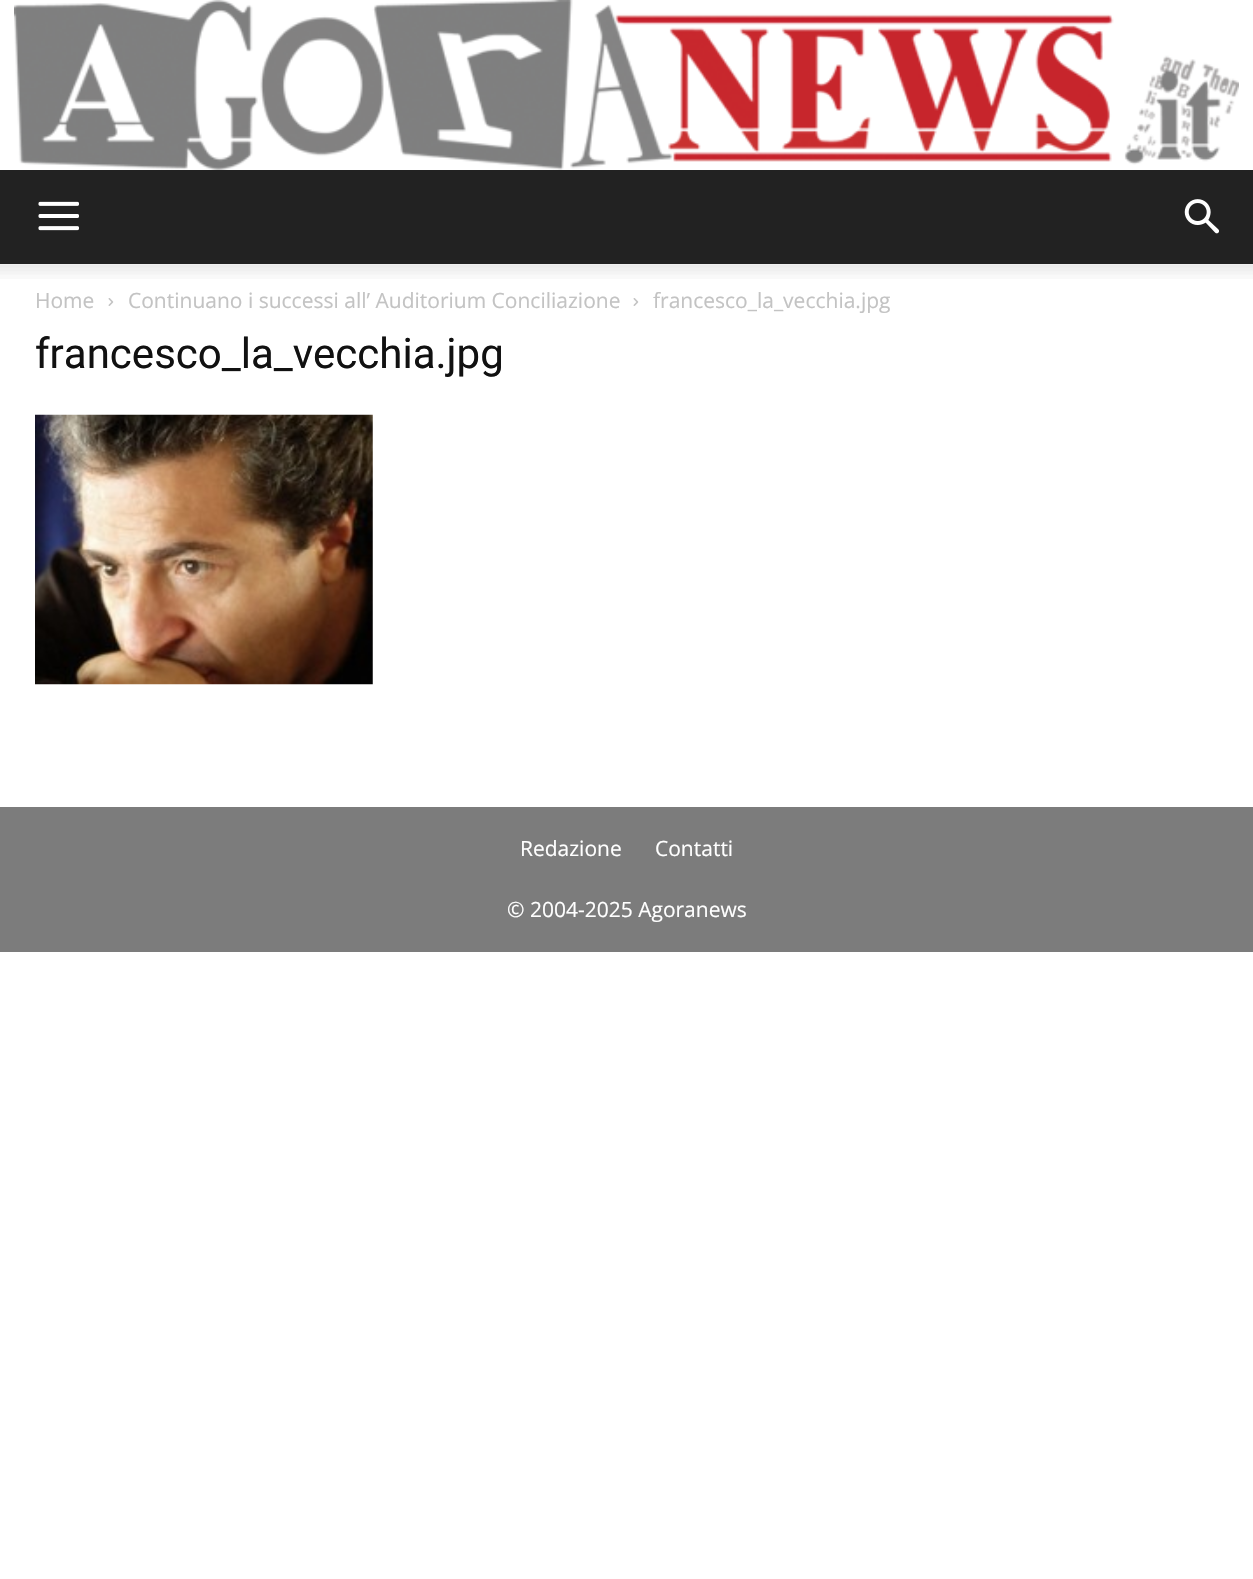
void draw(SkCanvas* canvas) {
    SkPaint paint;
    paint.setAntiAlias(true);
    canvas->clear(0xFFFFFFFF);
    canvas->drawImageRect(SkImages::DeferredFromEncodedData(SkData::MakeFromFileName("img1.png")), SkRect::MakeXYWH(14, 0, 1225, 170), SkSamplingOptions());
    paint.setColor(0xFF222222);
    canvas->drawRect(SkRect::MakeXYWH(0, 170, 1253, 94), paint);
    canvas->drawImageRect(SkImages::DeferredFromEncodedData(SkData::MakeFromFileName("img2.png")), SkRect::MakeXYWH(38, 201, 41, 30), SkSamplingOptions());
    canvas->drawImageRect(SkImages::DeferredFromEncodedData(SkData::MakeFromFileName("img3.png")), SkRect::MakeXYWH(1184, 199, 35, 35), SkSamplingOptions());
    canvas->drawImageRect(SkImages::DeferredFromEncodedData(SkData::MakeFromFileName("img4.png")), SkRect::MakeXYWH(0, 264, 1253, 15), SkSamplingOptions());
    SkFont font1(fontMgr->matchFamilyStyle("Open Sans", SkFontStyle::Normal()), 21);
    font1.setSubpixel(true);
    paint.setColor(0xFFC3C3C3);
    canvas->drawString("Home", 35, 308, font1, paint);
    canvas->drawImageRect(SkImages::DeferredFromEncodedData(SkData::MakeFromFileName("img5.png")), SkRect::MakeXYWH(108, 298, 6, 8), SkSamplingOptions());
    canvas->drawString("Continuano i successi all’ Auditorium Conciliazione", 128, 308, font1, paint);
    canvas->drawImageRect(SkImages::DeferredFromEncodedData(SkData::MakeFromFileName("img5.png")), SkRect::MakeXYWH(633, 298, 6, 8), SkSamplingOptions());
    canvas->drawString("francesco_la_vecchia.jpg", 653, 308, font1, paint);
    SkFont font2(fontMgr->matchFamilyStyle("Roboto", SkFontStyle::Normal()), 42);
    font2.setSubpixel(true);
    paint.setColor(0xFF111111);
    canvas->drawString("francesco_la_vecchia.jpg", 35, 368, font2, paint);
    canvas->drawImageRect(SkImages::DeferredFromEncodedData(SkData::MakeFromFileName("img6.png")), SkRect::MakeXYWH(35, 414, 338, 271), SkSamplingOptions());
    paint.setColor(0xFF7C7C7C);
    canvas->drawRect(SkRect::MakeXYWH(0, 807, 1253, 145), paint);
    paint.setColor(0xFFFFFFFF);
    canvas->drawString("Redazione", 520, 856, font1, paint);
    canvas->drawString("Contatti", 655, 856, font1, paint);
    canvas->drawString("© 2004-2025 Agoranews", 507, 917, font1, paint);
}
